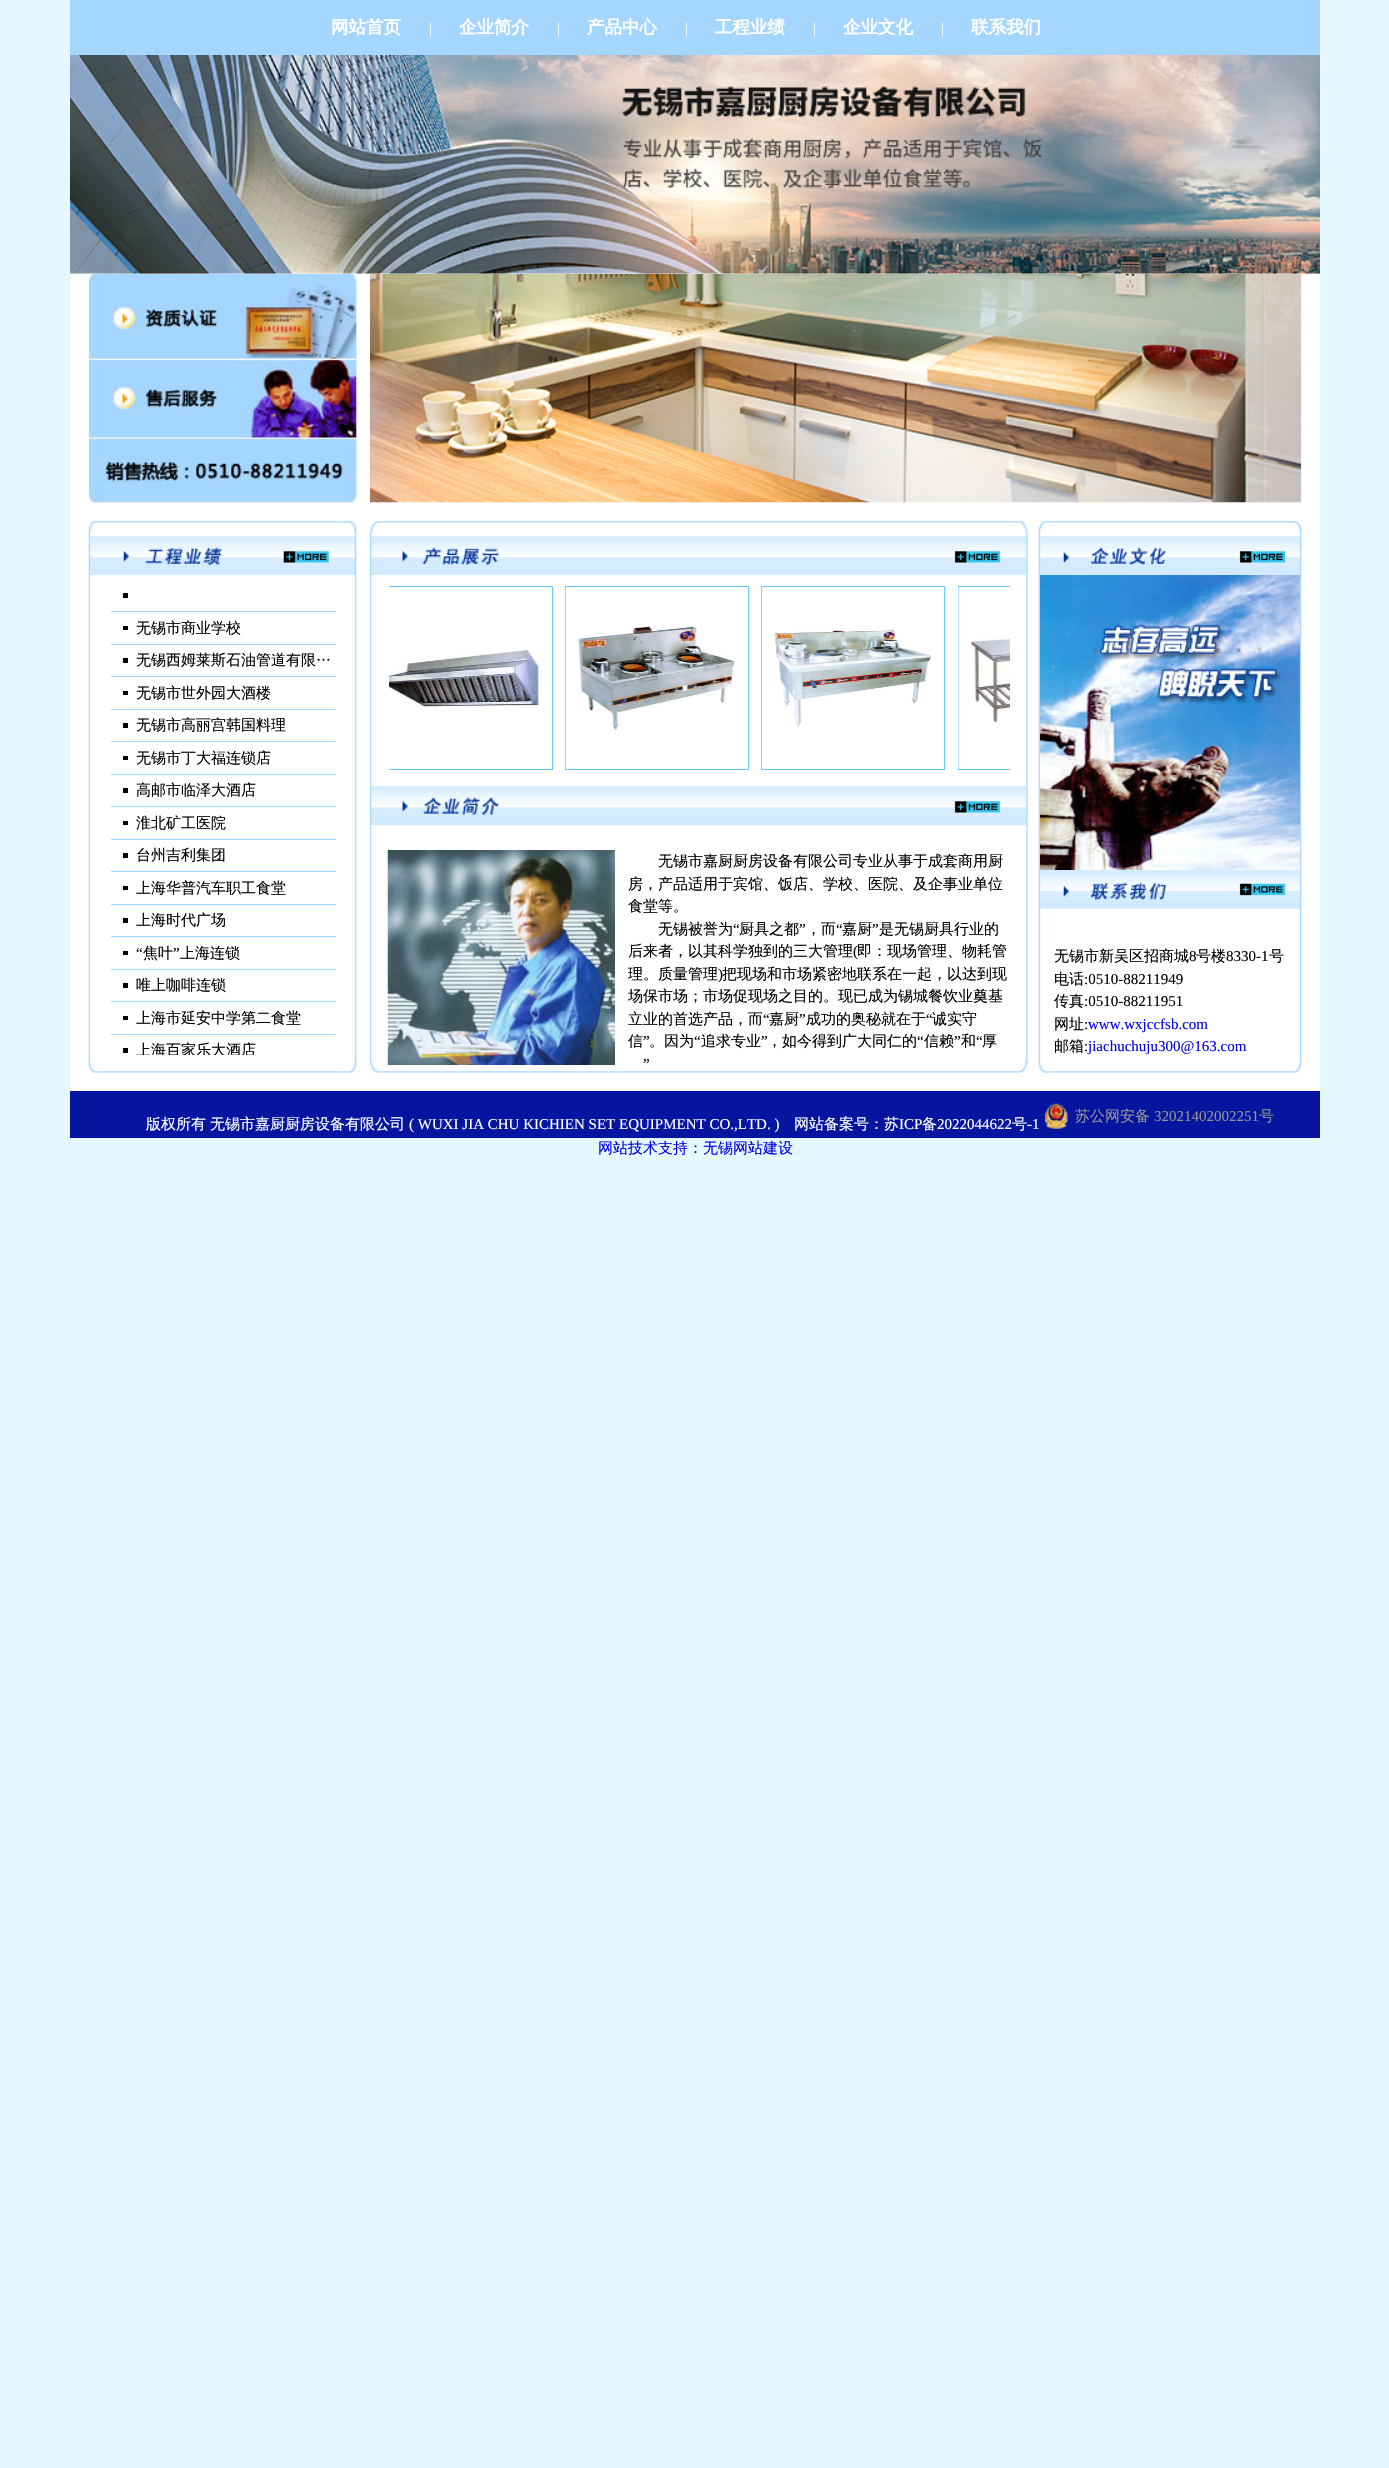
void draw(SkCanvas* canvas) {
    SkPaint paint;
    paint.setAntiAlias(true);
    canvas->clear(0xFFE6F8FF);
    paint.setColor(0xFFA5D6FF);
    canvas->drawRect(SkRect::MakeXYWH(70, 0, 1250, 55), paint);
    SkFont font1(fontMgr->matchFamilyStyle("WenQuanYi Zen Hei", SkFontStyle::Bold()), 17.5f);
    font1.setSubpixel(true);
    paint.setColor(0xFFFFFFFF);
    canvas->drawString("网站首页", 331, 33, font1, paint);
    SkFont font2(fontMgr->matchFamilyStyle("Liberation Serif", SkFontStyle::Normal()), 15);
    font2.setSubpixel(true);
    canvas->drawString("|", 429, 33, font2, paint);
    canvas->drawString("企业简介", 459, 33, font1, paint);
    canvas->drawString("|", 557, 33, font2, paint);
    canvas->drawString("产品中心", 587, 33, font1, paint);
    canvas->drawString("|", 685, 33, font2, paint);
    canvas->drawString("工程业绩", 715, 33, font1, paint);
    canvas->drawString("|", 813, 33, font2, paint);
    canvas->drawString("企业文化", 843, 33, font1, paint);
    canvas->drawString("|", 941, 33, font2, paint);
    canvas->drawString("联系我们", 971, 33, font1, paint);
    canvas->drawRect(SkRect::MakeXYWH(70, 273, 1250, 818), paint);
    canvas->drawImageRect(SkImages::DeferredFromEncodedData(SkData::MakeFromFileName("img1.png")), SkRect::MakeXYWH(70, 55, 1250, 219), SkSamplingOptions());
    canvas->drawImageRect(SkImages::DeferredFromEncodedData(SkData::MakeFromFileName("img2.png")), SkRect::MakeXYWH(88, 273, 270, 230), SkSamplingOptions());
    canvas->drawImageRect(SkImages::DeferredFromEncodedData(SkData::MakeFromFileName("img3.png")), SkRect::MakeXYWH(370, 273, 932, 230), SkSamplingOptions());
    canvas->drawImageRect(SkImages::DeferredFromEncodedData(SkData::MakeFromFileName("img4.png")), SkRect::MakeXYWH(88, 521, 1214, 552), SkSamplingOptions());
    paint.setColor(0xFF000000);
    canvas->drawRect(SkRect::MakeXYWH(123, 593, 5, 5), paint);
    paint.setColor(0xFFA4D6FF);
    canvas->drawRect(SkRect::MakeXYWH(111, 611, 225, 1), paint);
    paint.setColor(0xFF000000);
    canvas->drawRect(SkRect::MakeXYWH(123, 626, 5, 4), paint);
    paint.setColor(0xFFA4D6FF);
    canvas->drawRect(SkRect::MakeXYWH(111, 644, 225, 1), paint);
    SkFont font3(fontMgr->matchFamilyStyle("WenQuanYi Zen Hei", SkFontStyle(500, SkFontStyle::kNormal_Width, SkFontStyle::kUpright_Slant)), 15);
    font3.setSubpixel(true);
    paint.setColor(0xFF000000);
    canvas->drawString("无锡市商业学校", 136, 633, font3, paint);
    canvas->drawRect(SkRect::MakeXYWH(123, 658, 5, 5), paint);
    paint.setColor(0xFFA4D6FF);
    canvas->drawRect(SkRect::MakeXYWH(111, 676, 225, 1), paint);
    paint.setColor(0xFF000000);
    canvas->drawString("无锡西姆莱斯石油管道有限…", 136, 665, font3, paint);
    canvas->drawRect(SkRect::MakeXYWH(123, 691, 5, 4), paint);
    paint.setColor(0xFFA4D6FF);
    canvas->drawRect(SkRect::MakeXYWH(111, 709, 225, 1), paint);
    paint.setColor(0xFF000000);
    canvas->drawString("无锡市世外园大酒楼", 136, 698, font3, paint);
    canvas->drawRect(SkRect::MakeXYWH(123, 723, 5, 5), paint);
    paint.setColor(0xFFA4D6FF);
    canvas->drawRect(SkRect::MakeXYWH(111, 741, 225, 1), paint);
    paint.setColor(0xFF000000);
    canvas->drawString("无锡市高丽宫韩国料理", 136, 730, font3, paint);
    canvas->drawRect(SkRect::MakeXYWH(123, 756, 5, 4), paint);
    paint.setColor(0xFFA4D6FF);
    canvas->drawRect(SkRect::MakeXYWH(111, 774, 225, 1), paint);
    paint.setColor(0xFF000000);
    canvas->drawString("无锡市丁大福连锁店", 136, 763, font3, paint);
    canvas->drawRect(SkRect::MakeXYWH(123, 788, 5, 5), paint);
    paint.setColor(0xFFA4D6FF);
    canvas->drawRect(SkRect::MakeXYWH(111, 806, 225, 1), paint);
    paint.setColor(0xFF000000);
    canvas->drawString("高邮市临泽大酒店", 136, 795, font3, paint);
    canvas->drawRect(SkRect::MakeXYWH(123, 821, 5, 4), paint);
    paint.setColor(0xFFA4D6FF);
    canvas->drawRect(SkRect::MakeXYWH(111, 839, 225, 1), paint);
    paint.setColor(0xFF000000);
    canvas->drawString("淮北矿工医院", 136, 828, font3, paint);
    canvas->drawRect(SkRect::MakeXYWH(123, 853, 5, 5), paint);
    paint.setColor(0xFFA4D6FF);
    canvas->drawRect(SkRect::MakeXYWH(111, 871, 225, 1), paint);
    paint.setColor(0xFF000000);
    canvas->drawString("台州吉利集团", 136, 860, font3, paint);
    canvas->drawRect(SkRect::MakeXYWH(123, 886, 5, 4), paint);
    paint.setColor(0xFFA4D6FF);
    canvas->drawRect(SkRect::MakeXYWH(111, 904, 225, 1), paint);
    paint.setColor(0xFF000000);
    canvas->drawString("上海华普汽车职工食堂", 136, 893, font3, paint);
    canvas->drawRect(SkRect::MakeXYWH(123, 918, 5, 5), paint);
    paint.setColor(0xFFA4D6FF);
    canvas->drawRect(SkRect::MakeXYWH(111, 936, 225, 1), paint);
    paint.setColor(0xFF000000);
    canvas->drawString("上海时代广场", 136, 925, font3, paint);
    canvas->drawRect(SkRect::MakeXYWH(123, 951, 5, 4), paint);
    paint.setColor(0xFFA4D6FF);
    canvas->drawRect(SkRect::MakeXYWH(111, 969, 225, 1), paint);
    paint.setColor(0xFF000000);
    canvas->drawString("“", 136, 958, font2, paint);
    canvas->drawString("焦叶", 143, 958, font3, paint);
    canvas->drawString("”", 173, 958, font2, paint);
    canvas->drawString("上海连锁", 180, 958, font3, paint);
    canvas->drawRect(SkRect::MakeXYWH(123, 983, 5, 5), paint);
    paint.setColor(0xFFA4D6FF);
    canvas->drawRect(SkRect::MakeXYWH(111, 1001, 225, 1), paint);
    paint.setColor(0xFF000000);
    canvas->drawString("唯上咖啡连锁", 136, 990, font3, paint);
    canvas->drawRect(SkRect::MakeXYWH(123, 1016, 5, 4), paint);
    paint.setColor(0xFFA4D6FF);
    canvas->drawRect(SkRect::MakeXYWH(111, 1034, 225, 1), paint);
    paint.setColor(0xFF000000);
    canvas->drawString("上海市延安中学第二食堂", 136, 1023, font3, paint);
    canvas->drawRect(SkRect::MakeXYWH(123, 1048, 5, 5), paint);
    canvas->save();
    canvas->clipRect(SkRect::MakeXYWH(111, 1035, 225, 20));
    canvas->drawString("上海百家乐大酒店", 136, 1055, font3, paint);
    canvas->restore();
    canvas->save();
    canvas->clipRect(SkRect::MakeXYWH(389, 586, 621, 189));
    paint.setStyle(SkPaint::kStroke_Style);
    paint.setStrokeWidth(1);
    paint.setColor(0xFF66CCFF);
    canvas->drawRect(SkRect::MakeXYWH(369.5f, 586.5f, 183, 183), paint);
    canvas->restore();
    canvas->drawImageRect(SkImages::DeferredFromEncodedData(SkData::MakeFromFileName("img5.png")), SkRect::MakeXYWH(389, 650, 150, 57), SkSamplingOptions());
    canvas->drawRect(SkRect::MakeXYWH(565.5f, 586.5f, 183, 183), paint);
    canvas->drawImageRect(SkImages::DeferredFromEncodedData(SkData::MakeFromFileName("img6.png")), SkRect::MakeXYWH(565, 587, 170, 182), SkSamplingOptions());
    canvas->drawRect(SkRect::MakeXYWH(761.5f, 586.5f, 183, 183), paint);
    canvas->drawImageRect(SkImages::DeferredFromEncodedData(SkData::MakeFromFileName("img7.png")), SkRect::MakeXYWH(761, 587, 171, 182), SkSamplingOptions());
    canvas->save();
    canvas->clipRect(SkRect::MakeXYWH(389, 586, 621, 189));
    canvas->drawRect(SkRect::MakeXYWH(958.5f, 586.5f, 182, 183), paint);
    canvas->restore();
    canvas->drawImageRect(SkImages::DeferredFromEncodedData(SkData::MakeFromFileName("img8.png")), SkRect::MakeXYWH(958, 587, 52, 182), SkSamplingOptions());
    canvas->drawImageRect(SkImages::DeferredFromEncodedData(SkData::MakeFromFileName("img9.png")), SkRect::MakeXYWH(1040, 575, 260, 295), SkSamplingOptions());
    canvas->drawImageRect(SkImages::DeferredFromEncodedData(SkData::MakeFromFileName("img10.png")), SkRect::MakeXYWH(387, 850, 228, 215), SkSamplingOptions());
    paint.setStyle(SkPaint::kFill_Style);
    paint.setColor(0xFF000000);
    canvas->drawString("无锡市嘉厨厨房设备有限公司专业从事于成套商用厨", 658, 866, font3, paint);
    canvas->drawString("房，产品适用于宾馆、饭店、学校、医院、及企事业单位", 628, 889, font3, paint);
    canvas->drawString("食堂等。", 628, 911, font3, paint);
    canvas->drawString("无锡被誉为", 658, 934, font3, paint);
    canvas->drawString("“", 733, 934, font2, paint);
    canvas->drawString("厨具之都", 739, 934, font3, paint);
    canvas->drawString("”", 799, 934, font2, paint);
    canvas->drawString("，而", 806, 934, font3, paint);
    canvas->drawString("“", 836, 934, font2, paint);
    canvas->drawString("嘉厨", 842, 934, font3, paint);
    canvas->drawString("”", 872, 934, font2, paint);
    canvas->drawString("是无锡厨具行业的", 879, 934, font3, paint);
    canvas->drawString("后来者，以其科学独到的三大管理", 628, 956, font3, paint);
    canvas->drawString("(", 853, 956, font2, paint);
    canvas->drawString("即：现场管理、物耗管", 857, 956, font3, paint);
    canvas->drawString("理。质量管理", 628, 979, font3, paint);
    canvas->drawString(")", 718, 979, font2, paint);
    canvas->drawString("把现场和市场紧密地联系在一起，以达到现", 722, 979, font3, paint);
    canvas->drawString("场保市场；市场促现场之目的。现已成为锡城餐饮业奠基", 628, 1001, font3, paint);
    canvas->drawString("立业的首选产品，而", 628, 1024, font3, paint);
    canvas->drawString("“", 763, 1024, font2, paint);
    canvas->drawString("嘉厨", 769, 1024, font3, paint);
    canvas->drawString("”", 799, 1024, font2, paint);
    canvas->drawString("成功的奥秘就在于", 806, 1024, font3, paint);
    canvas->drawString("“", 926, 1024, font2, paint);
    canvas->drawString("诚实守", 932, 1024, font3, paint);
    canvas->drawString("信", 628, 1046, font3, paint);
    canvas->drawString("”", 643, 1046, font2, paint);
    canvas->drawString("。因为", 649, 1046, font3, paint);
    canvas->drawString("“", 694, 1046, font2, paint);
    canvas->drawString("追求专业", 701, 1046, font3, paint);
    canvas->drawString("”", 761, 1046, font2, paint);
    canvas->drawString("，如今得到广大同仁的", 767, 1046, font3, paint);
    canvas->drawString("“", 917, 1046, font2, paint);
    canvas->drawString("信赖", 924, 1046, font3, paint);
    canvas->drawString("”", 954, 1046, font2, paint);
    canvas->drawString("和", 961, 1046, font3, paint);
    canvas->drawString("“", 976, 1046, font2, paint);
    canvas->drawString("厚", 982, 1046, font3, paint);
    canvas->drawString("”", 643, 1069, font2, paint);
    canvas->drawString("无锡市新吴区招商城", 1054, 961, font3, paint);
    canvas->drawString("8", 1189, 961, font2, paint);
    canvas->drawString("号楼", 1196, 961, font3, paint);
    canvas->drawString("8330-1", 1226, 961, font2, paint);
    canvas->drawString("号", 1269, 961, font3, paint);
    canvas->drawString("电话", 1054, 984, font3, paint);
    canvas->drawString(":0510-88211949", 1084, 984, font2, paint);
    canvas->drawString("传真", 1054, 1006, font3, paint);
    canvas->drawString(":0510-88211951", 1084, 1006, font2, paint);
    canvas->drawString("网址", 1054, 1029, font3, paint);
    canvas->drawString(":", 1084, 1029, font2, paint);
    paint.setColor(0xFF0000EE);
    canvas->drawString("www.wxjccfsb.com", 1088, 1029, font2, paint);
    paint.setColor(0xFF000000);
    canvas->drawString("邮箱", 1054, 1051, font3, paint);
    canvas->drawString(":", 1084, 1051, font2, paint);
    paint.setColor(0xFF0000EE);
    canvas->drawString("jiachuchuju300@163.com", 1088, 1051, font2, paint);
    paint.setColor(0xFF0515A0);
    canvas->drawRect(SkRect::MakeXYWH(70, 1091, 1250, 47), paint);
    paint.setColor(0xFFFFFFFF);
    canvas->drawString("版权所有", 146, 1129, font3, paint);
    canvas->drawString("无锡市嘉厨厨房设备有限公司", 210, 1129, font3, paint);
    canvas->drawString("( WUXI JIA CHU KICHIEN SET EQUIPMENT CO.,LTD. )", 409, 1129, font2, paint);
    canvas->drawString("网站备案号：苏", 794, 1129, font3, paint);
    canvas->drawString("ICP", 899, 1129, font2, paint);
    canvas->drawString("备", 922, 1129, font3, paint);
    canvas->drawString("2022044622", 937, 1129, font2, paint);
    canvas->drawString("号", 1012, 1129, font3, paint);
    canvas->drawString("-1", 1027, 1129, font2, paint);
    canvas->drawImageRect(SkImages::DeferredFromEncodedData(SkData::MakeFromFileName("img11.png")), SkRect::MakeXYWH(1044, 1103, 24, 26), SkSamplingOptions());
    paint.setColor(0xFF939393);
    canvas->drawString("苏公网安备", 1075, 1121, font3, paint);
    canvas->drawString("32021402002251", 1154, 1121, font2, paint);
    canvas->drawString("号", 1259, 1121, font3, paint);
    paint.setColor(0xFF0000EE);
    canvas->drawString("网站技术支持：无锡网站建设", 598, 1153, font3, paint);
}
